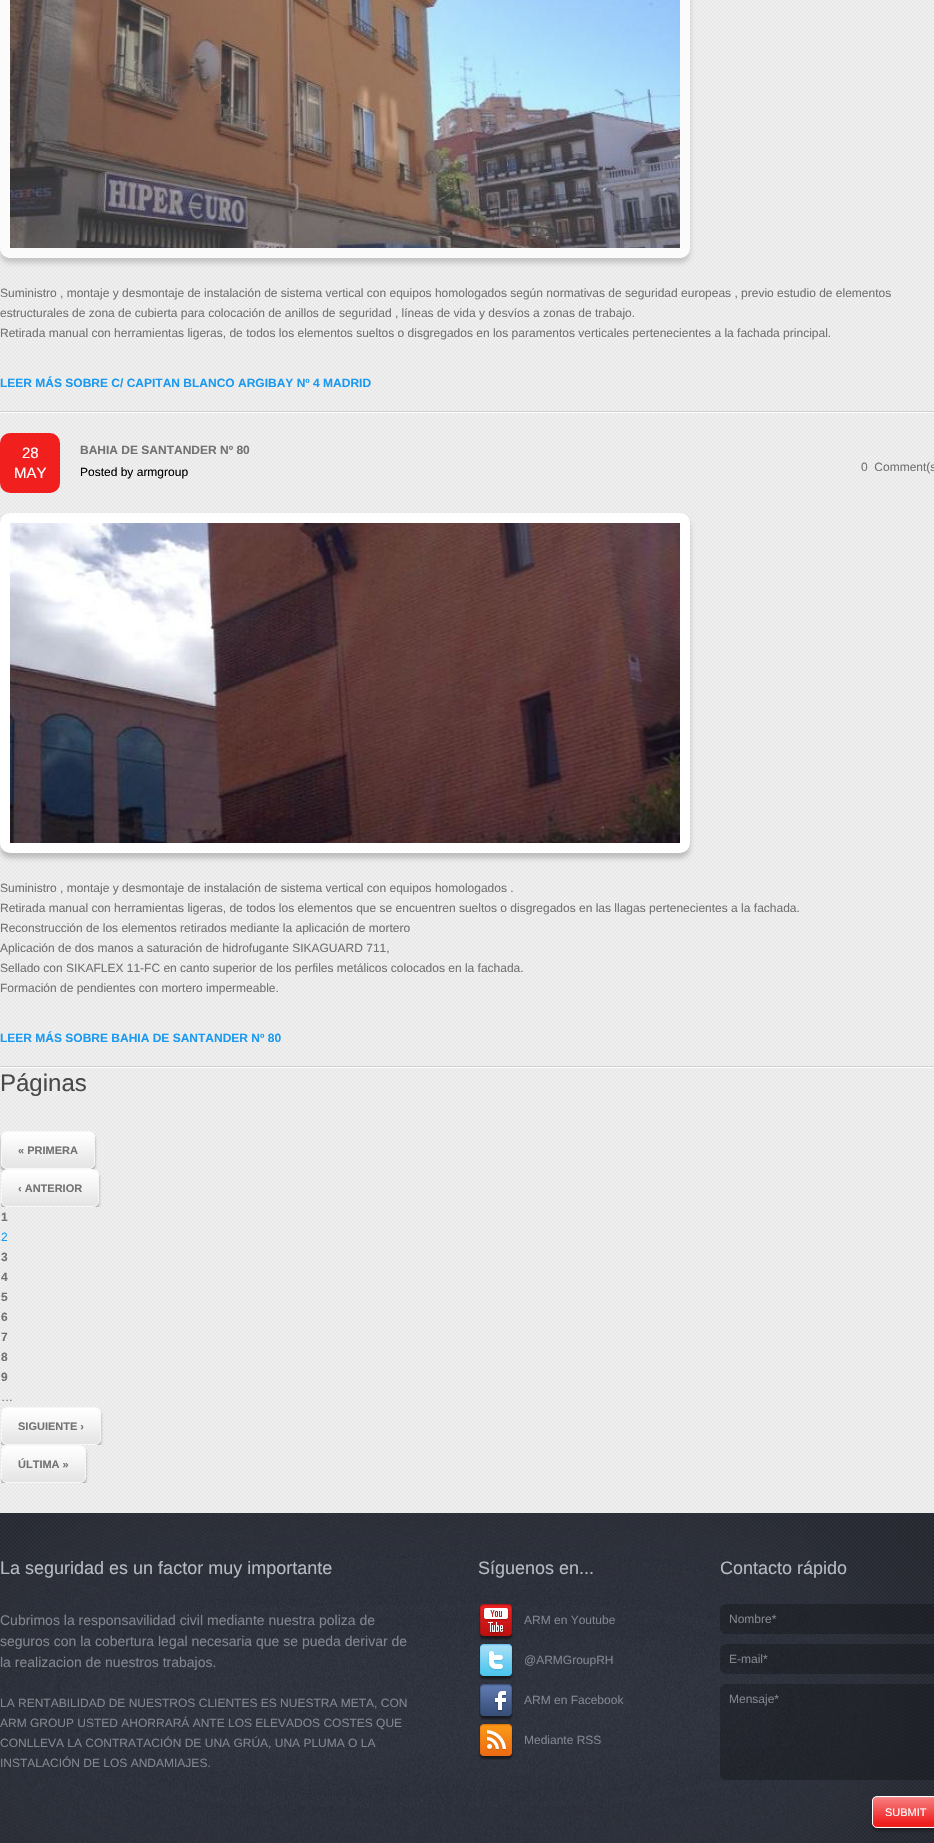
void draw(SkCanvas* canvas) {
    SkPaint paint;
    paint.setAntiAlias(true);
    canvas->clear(0xFFFFFFFF);
    canvas->drawImageRect(SkImages::DeferredFromEncodedData(SkData::MakeFromFileName("img1.png")), SkRect::MakeXYWH(0, 1513, 934, 330), SkSamplingOptions());
    canvas->drawImageRect(SkImages::DeferredFromEncodedData(SkData::MakeFromFileName("img2.png")), SkRect::MakeXYWH(0, 0, 934, 1513), SkSamplingOptions());
    canvas->drawImageRect(SkImages::DeferredFromEncodedData(SkData::MakeFromFileName("img3.png")), SkRect::MakeXYWH(0, 411, 934, 2), SkSamplingOptions());
    canvas->save();
    canvas->clipPath(SkPathBuilder(SkPathFillType::kEvenOdd).moveTo(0, 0).lineTo(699, 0).lineTo(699, 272).lineTo(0, 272).close().moveTo(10, -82).lineTo(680, -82).cubicTo(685.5f, -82, 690, -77.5f, 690, -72).lineTo(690, 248).cubicTo(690, 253.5f, 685.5f, 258, 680, 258).lineTo(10, 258).cubicTo(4.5f, 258, 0, 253.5f, 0, 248).lineTo(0, -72).cubicTo(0, -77.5f, 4.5f, -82, 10, -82).close().detach(), true);
    paint.setColor(0x29000000);
    paint.setMaskFilter(SkMaskFilter::MakeBlur(kNormal_SkBlurStyle, 2.5f));
    canvas->drawRoundRect(SkRect::MakeXYWH(0, -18, 690, 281), 10, 10, paint);
    paint.setMaskFilter(nullptr);
    canvas->restore();
    paint.setStyle(SkPaint::kStroke_Style);
    paint.setStrokeWidth(10);
    paint.setColor(0xCCFFFFFF);
    canvas->drawRoundRect(SkRect::MakeXYWH(5, -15, 680, 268), 5, 5, paint);
    canvas->drawImageRect(SkImages::DeferredFromEncodedData(SkData::MakeFromFileName("img4.png")), SkRect::MakeXYWH(10, 0, 670, 248), SkSamplingOptions());
    SkFont font1(fontMgr->matchFamilyStyle("Liberation Sans", SkFontStyle::Normal()), 12);
    font1.setSubpixel(true);
    paint.setStyle(SkPaint::kFill_Style);
    paint.setColor(0xFF727272);
    canvas->drawString("Suministro , montaje y desmontaje de instalación de sistema vertical con equipos homologados según normativas de seguridad europeas , previo estudio de elementos", 0, 297, font1, paint);
    canvas->drawString("estructurales de zona de cubierta para colocación de anillos de seguridad , líneas de vida y desvíos a zonas de trabajo.", 0, 317, font1, paint);
    canvas->drawString("Retirada manual con herramientas ligeras, de todos los elementos sueltos o disgregados en los paramentos verticales pertenecientes a la fachada principal.", 0, 337, font1, paint);
    SkFont font2(fontMgr->matchFamilyStyle("Liberation Sans", SkFontStyle::Bold()), 12);
    font2.setSubpixel(true);
    paint.setColor(0xFF1C9AF0);
    canvas->drawString("LEER MÁS SOBRE C/ CAPITAN BLANCO ARGIBAY Nº 4 MADRID", 0, 387, font2, paint);
    canvas->drawImageRect(SkImages::DeferredFromEncodedData(SkData::MakeFromFileName("img5.png")), SkRect::MakeXYWH(0, 1066, 934, 2), SkSamplingOptions());
    paint.setColor(0xFFF21F1F);
    canvas->drawRoundRect(SkRect::MakeXYWH(0, 433, 60, 60), 10, 10, paint);
    SkFont font3(fontMgr->matchFamilyStyle("Liberation Sans", SkFontStyle::Normal()), 15);
    font3.setSubpixel(true);
    paint.setColor(0xFFFFFFFF);
    canvas->drawString("28", 22, 458, font3, paint);
    canvas->drawString("MAY", 14, 478, font3, paint);
    paint.setColor(0xFF727272);
    canvas->drawString("BAHIA DE SANTANDER Nº 80", 80, 454, font2, paint);
    paint.setColor(0xFF000000);
    canvas->drawString("Posted by armgroup", 80, 476, font1, paint);
    paint.setColor(0xFF727272);
    canvas->drawString("0  Comment(s", 861, 471, font1, paint);
    paint.setColor(0x33000000);
    paint.setMaskFilter(SkMaskFilter::MakeBlur(kNormal_SkBlurStyle, 2.5f));
    canvas->drawRoundRect(SkRect::MakeXYWH(0, 518, 690, 340), 10, 10, paint);
    paint.setMaskFilter(nullptr);
    paint.setStyle(SkPaint::kStroke_Style);
    paint.setColor(0xFFFFFFFF);
    canvas->drawRoundRect(SkRect::MakeXYWH(5, 518, 680, 330), 5, 5, paint);
    canvas->drawImageRect(SkImages::DeferredFromEncodedData(SkData::MakeFromFileName("img6.png")), SkRect::MakeXYWH(10, 523, 670, 320), SkSamplingOptions());
    paint.setStyle(SkPaint::kFill_Style);
    paint.setColor(0xFF727272);
    canvas->drawString("Suministro , montaje y desmontaje de instalación de sistema vertical con equipos homologados .", 0, 892, font1, paint);
    canvas->drawString("Retirada manual con herramientas ligeras, de todos los elementos que se encuentren sueltos o disgregados en las llagas pertenecientes a la fachada.", 0, 912, font1, paint);
    canvas->drawString("Reconstrucción de los elementos retirados mediante la aplicación de mortero", 0, 932, font1, paint);
    canvas->drawString("Aplicación de dos manos a saturación de hidrofugante SIKAGUARD 711,", 0, 952, font1, paint);
    canvas->drawString("Sellado con SIKAFLEX 11-FC en canto superior de los perfiles metálicos colocados en la fachada.", 0, 972, font1, paint);
    canvas->drawString("Formación de pendientes con mortero impermeable.", 0, 992, font1, paint);
    paint.setColor(0xFF1C9AF0);
    canvas->drawString("LEER MÁS SOBRE BAHIA DE SANTANDER Nº 80", 0, 1042, font2, paint);
    SkFont font4(fontMgr->matchFamilyStyle("Liberation Sans", SkFontStyle::Normal()), 24);
    font4.setSubpixel(true);
    paint.setColor(0xFF494949);
    canvas->drawString("Páginas", 0, 1091, font4, paint);
    canvas->save();
    canvas->clipPath(SkPathBuilder(SkPathFillType::kEvenOdd).moveTo(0, 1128).lineTo(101, 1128).lineTo(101, 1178).lineTo(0, 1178).close().moveTo(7, 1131).lineTo(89, 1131).cubicTo(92.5f, 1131, 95, 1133.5f, 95, 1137).lineTo(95, 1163).cubicTo(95, 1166.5f, 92.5f, 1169, 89, 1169).lineTo(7, 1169).cubicTo(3.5f, 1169, 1, 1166.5f, 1, 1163).lineTo(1, 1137).cubicTo(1, 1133.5f, 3.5f, 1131, 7, 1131).close().detach(), true);
    paint.setColor(0x4D000000);
    paint.setMaskFilter(SkMaskFilter::MakeBlur(kNormal_SkBlurStyle, 1.5f));
    canvas->drawRoundRect(SkRect::MakeXYWH(1, 1134, 94, 38), 6, 6, paint);
    paint.setMaskFilter(nullptr);
    canvas->restore();
    canvas->drawImageRect(SkImages::DeferredFromEncodedData(SkData::MakeFromFileName("img7.png")), SkRect::MakeXYWH(1, 1132, 94, 37), SkSamplingOptions());
    paint.setStyle(SkPaint::kStroke_Style);
    paint.setStrokeWidth(1);
    paint.setColor(0xFFF7F7F7);
    canvas->drawRoundRect(SkRect::MakeXYWH(1.5f, 1131.5f, 93, 37), 5.5f, 5.5f, paint);
    SkFont font5(fontMgr->matchFamilyStyle("Liberation Sans", SkFontStyle::Bold()), 11);
    font5.setSubpixel(true);
    paint.setStyle(SkPaint::kFill_Style);
    paint.setColor(0xFF727272);
    canvas->drawString("« PRIMERA", 18, 1154, font5, paint);
    canvas->save();
    canvas->clipRect(SkRect::MakeXYWH(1, 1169, 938, 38));
    paint.setColor(0x4D000000);
    paint.setMaskFilter(SkMaskFilter::MakeBlur(kNormal_SkBlurStyle, 1.5f));
    canvas->drawRoundRect(SkRect::MakeXYWH(1, 1172, 98, 38), 6, 6, paint);
    paint.setMaskFilter(nullptr);
    canvas->restore();
    canvas->drawImageRect(SkImages::DeferredFromEncodedData(SkData::MakeFromFileName("img8.png")), SkRect::MakeXYWH(1, 1170, 98, 37), SkSamplingOptions());
    paint.setStyle(SkPaint::kStroke_Style);
    paint.setColor(0xFFF7F7F7);
    canvas->drawRoundRect(SkRect::MakeXYWH(1.5f, 1169.5f, 97, 37), 5.5f, 5.5f, paint);
    paint.setStyle(SkPaint::kFill_Style);
    paint.setColor(0xFF727272);
    canvas->drawString("‹ ANTERIOR", 18, 1192, font5, paint);
    canvas->drawString("1", 1, 1221, font2, paint);
    paint.setColor(0xFF1C9AF0);
    canvas->drawString("2", 1, 1241, font1, paint);
    paint.setColor(0xFF727272);
    canvas->drawString("3", 1, 1261, font2, paint);
    canvas->drawString("4", 1, 1281, font2, paint);
    canvas->drawString("5", 1, 1301, font2, paint);
    canvas->drawString("6", 1, 1321, font2, paint);
    canvas->drawString("7", 1, 1341, font2, paint);
    canvas->drawString("8", 1, 1361, font2, paint);
    canvas->drawString("9", 1, 1381, font2, paint);
    canvas->drawString("…", 1, 1401, font1, paint);
    canvas->save();
    canvas->clipRect(SkRect::MakeXYWH(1, 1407, 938, 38));
    paint.setColor(0x4D000000);
    paint.setMaskFilter(SkMaskFilter::MakeBlur(kNormal_SkBlurStyle, 1.5f));
    canvas->drawRoundRect(SkRect::MakeXYWH(1, 1410, 100, 38), 6, 6, paint);
    paint.setMaskFilter(nullptr);
    canvas->restore();
    canvas->drawImageRect(SkImages::DeferredFromEncodedData(SkData::MakeFromFileName("img9.png")), SkRect::MakeXYWH(1, 1408, 100, 37), SkSamplingOptions());
    paint.setStyle(SkPaint::kStroke_Style);
    paint.setColor(0xFFF7F7F7);
    canvas->drawRoundRect(SkRect::MakeXYWH(1.5f, 1407.5f, 99, 37), 5.5f, 5.5f, paint);
    paint.setStyle(SkPaint::kFill_Style);
    paint.setColor(0xFF727272);
    canvas->drawString("SIGUIENTE ›", 18, 1430, font5, paint);
    canvas->save();
    canvas->clipRect(SkRect::MakeXYWH(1, 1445, 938, 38));
    paint.setColor(0x4D000000);
    paint.setMaskFilter(SkMaskFilter::MakeBlur(kNormal_SkBlurStyle, 1.5f));
    canvas->drawRoundRect(SkRect::MakeXYWH(1, 1448, 85, 38), 6, 6, paint);
    paint.setMaskFilter(nullptr);
    canvas->restore();
    canvas->drawImageRect(SkImages::DeferredFromEncodedData(SkData::MakeFromFileName("img10.png")), SkRect::MakeXYWH(1, 1446, 85, 37), SkSamplingOptions());
    paint.setStyle(SkPaint::kStroke_Style);
    paint.setColor(0xFFF7F7F7);
    canvas->drawRoundRect(SkRect::MakeXYWH(1.5f, 1445.5f, 84, 37), 5.5f, 5.5f, paint);
    paint.setStyle(SkPaint::kFill_Style);
    paint.setColor(0xFF727272);
    canvas->drawString("ÚLTIMA »", 18, 1468, font5, paint);
    canvas->drawImageRect(SkImages::DeferredFromEncodedData(SkData::MakeFromFileName("img11.png")), SkRect::MakeXYWH(0, 1513, 934, 330), SkSamplingOptions());
    SkFont font6(fontMgr->matchFamilyStyle("Liberation Sans", SkFontStyle::Normal()), 18);
    font6.setSubpixel(true);
    paint.setColor(0xFFB6BBC3);
    canvas->drawString("La seguridad es un factor muy importante", 0, 1574, font6, paint);
    SkFont font7(fontMgr->matchFamilyStyle("Liberation Sans", SkFontStyle::Normal()), 14);
    font7.setSubpixel(true);
    paint.setColor(0xFF82848E);
    canvas->drawString("Cubrimos la responsavilidad civil mediante nuestra poliza de", 0, 1625, font7, paint);
    canvas->drawString("seguros con la cobertura legal necesaria que se pueda derivar de", 0, 1646, font7, paint);
    canvas->drawString("la realizacion de nuestros trabajos.", 0, 1667, font7, paint);
    canvas->drawString("LA RENTABILIDAD DE NUESTROS CLIENTES ES NUESTRA META, CON", 0, 1707, font1, paint);
    canvas->drawString("ARM GROUP USTED AHORRARÁ ANTE LOS ELEVADOS COSTES QUE", 0, 1727, font1, paint);
    canvas->drawString("CONLLEVA LA CONTRATACIÓN DE UNA GRÚA, UNA PLUMA O LA", 0, 1747, font1, paint);
    canvas->drawString("INSTALACIÓN DE LOS ANDAMIAJES.", 0, 1767, font1, paint);
    paint.setColor(0xFFB6BBC3);
    canvas->drawString("Síguenos en...", 478, 1574, font6, paint);
    canvas->drawImageRect(SkImages::DeferredFromEncodedData(SkData::MakeFromFileName("img12.png")), SkRect::MakeXYWH(479, 1604, 34, 36), SkSamplingOptions());
    paint.setColor(0xFF82848E);
    canvas->drawString("ARM en Youtube", 524, 1624, font1, paint);
    canvas->drawImageRect(SkImages::DeferredFromEncodedData(SkData::MakeFromFileName("img13.png")), SkRect::MakeXYWH(479, 1644, 34, 36), SkSamplingOptions());
    canvas->drawString("@ARMGroupRH", 524, 1664, font1, paint);
    canvas->drawImageRect(SkImages::DeferredFromEncodedData(SkData::MakeFromFileName("img14.png")), SkRect::MakeXYWH(479, 1684, 34, 36), SkSamplingOptions());
    canvas->drawString("ARM en Facebook", 524, 1704, font1, paint);
    canvas->drawImageRect(SkImages::DeferredFromEncodedData(SkData::MakeFromFileName("img15.png")), SkRect::MakeXYWH(479, 1724, 34, 36), SkSamplingOptions());
    canvas->drawString("Mediante RSS", 524, 1744, font1, paint);
    paint.setColor(0xFFB6BBC3);
    canvas->drawString("Contacto rápido", 720, 1574, font6, paint);
    canvas->drawImageRect(SkImages::DeferredFromEncodedData(SkData::MakeFromFileName("img16.png")), SkRect::MakeXYWH(720, 1604, 214, 30), SkSamplingOptions());
    paint.setColor(0xFF82848E);
    canvas->drawString("Nombre*", 729, 1623, font1, paint);
    canvas->drawImageRect(SkImages::DeferredFromEncodedData(SkData::MakeFromFileName("img17.png")), SkRect::MakeXYWH(720, 1644, 214, 30), SkSamplingOptions());
    canvas->drawString("E-mail*", 729, 1663, font1, paint);
    canvas->drawImageRect(SkImages::DeferredFromEncodedData(SkData::MakeFromFileName("img18.png")), SkRect::MakeXYWH(720, 1684, 214, 96), SkSamplingOptions());
    canvas->drawString("Mensaje*", 729, 1703, font1, paint);
    paint.setColor(0x4D000000);
    paint.setMaskFilter(SkMaskFilter::MakeBlur(kNormal_SkBlurStyle, 1.5f));
    canvas->drawRoundRect(SkRect::MakeXYWH(872, 1799, 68, 32), 5, 5, paint);
    paint.setMaskFilter(nullptr);
    canvas->drawImageRect(SkImages::DeferredFromEncodedData(SkData::MakeFromFileName("img19.png")), SkRect::MakeXYWH(872, 1797, 62, 31), SkSamplingOptions());
    paint.setStyle(SkPaint::kStroke_Style);
    paint.setColor(0xFFFFFFFF);
    canvas->drawRoundRect(SkRect::MakeXYWH(872.5f, 1796.5f, 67, 31), 4.5f, 4.5f, paint);
    SkFont font8(fontMgr->matchFamilyStyle("Liberation Sans", SkFontStyle::Normal()), 11);
    font8.setSubpixel(true);
    paint.setStyle(SkPaint::kFill_Style);
    canvas->drawString("SUBMIT", 885, 1816, font8, paint);
}
